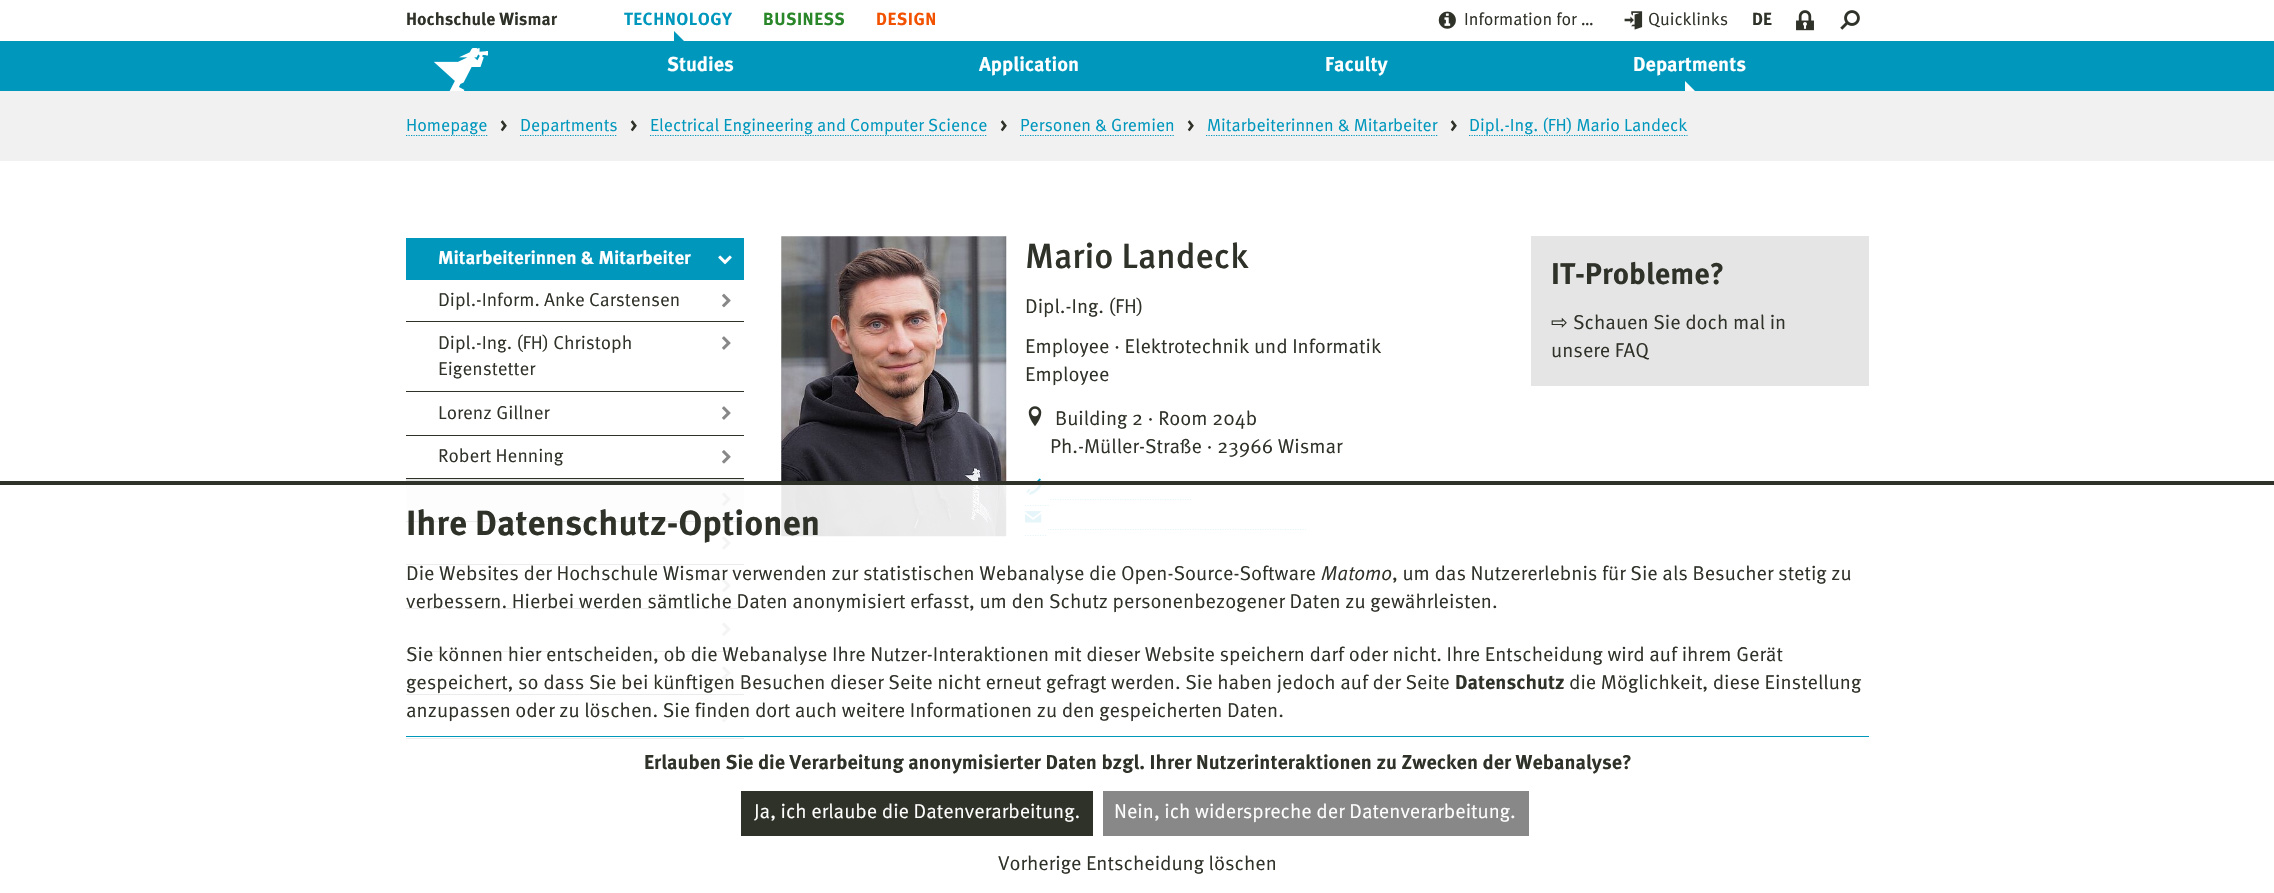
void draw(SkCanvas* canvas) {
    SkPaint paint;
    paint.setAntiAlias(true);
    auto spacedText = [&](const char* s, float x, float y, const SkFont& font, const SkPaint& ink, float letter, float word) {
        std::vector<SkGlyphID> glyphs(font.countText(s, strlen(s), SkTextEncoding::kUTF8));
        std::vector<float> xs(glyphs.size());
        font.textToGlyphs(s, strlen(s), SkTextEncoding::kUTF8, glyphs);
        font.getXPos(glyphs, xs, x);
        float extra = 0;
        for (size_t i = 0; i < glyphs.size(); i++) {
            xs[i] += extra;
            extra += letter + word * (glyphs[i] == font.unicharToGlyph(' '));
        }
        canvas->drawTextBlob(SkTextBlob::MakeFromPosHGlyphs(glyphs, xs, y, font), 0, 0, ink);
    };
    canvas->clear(0xFFFFFFFF);
    SkFont font1(fontMgr->matchFamilyStyle("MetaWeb", SkFontStyle::Bold()), 17.5f);
    font1.setSubpixel(true);
    paint.setColor(0xFF2F3229);
    canvas->drawString("Hochschule Wismar", 406, 25, font1, paint);
    paint.setColor(0xFF0097BD);
    spacedText("TECHNOLOGY", 624, 25, font1, paint, 0.5f, 0);
    canvas->drawPath(SkPathBuilder().moveTo(674, 41).lineTo(674, 31).lineTo(684, 41).close().detach(), paint);
    paint.setColor(0xFF298729);
    spacedText("BUSINESS", 763, 25, font1, paint, 0.5f, 0);
    paint.setColor(0xFFF25100);
    spacedText("DESIGN", 876, 25, font1, paint, 0.5f, 0);
    canvas->drawImageRect(SkImages::DeferredFromEncodedData(SkData::MakeFromFileName("img1.png")), SkRect::MakeXYWH(1438, 11, 18, 18), SkSamplingOptions());
    SkFont font2(fontMgr->matchFamilyStyle("MetaWeb", SkFontStyle::Normal()), 17.5f);
    font2.setSubpixel(true);
    paint.setColor(0xFF2F3229);
    canvas->drawString("Information for …", 1464, 25, font2, paint);
    canvas->drawImageRect(SkImages::DeferredFromEncodedData(SkData::MakeFromFileName("img2.png")), SkRect::MakeXYWH(1624, 11, 19, 19), SkSamplingOptions());
    canvas->drawString("Quicklinks", 1648, 25, font2, paint);
    canvas->drawString("DE", 1752, 25, font1, paint);
    canvas->drawImageRect(SkImages::DeferredFromEncodedData(SkData::MakeFromFileName("img3.png")), SkRect::MakeXYWH(1796, 10, 18, 21), SkSamplingOptions());
    canvas->drawImageRect(SkImages::DeferredFromEncodedData(SkData::MakeFromFileName("img4.png")), SkRect::MakeXYWH(1840, 10, 20, 20), SkSamplingOptions());
    paint.setColor(0xFF0097BD);
    canvas->drawRect(SkRect::MakeXYWH(0, 41, 2274, 50), paint);
    canvas->drawImageRect(SkImages::DeferredFromEncodedData(SkData::MakeFromFileName("img5.png")), SkRect::MakeXYWH(434, 48, 54, 43), SkSamplingOptions());
    SkFont font3(fontMgr->matchFamilyStyle("MetaWeb", SkFontStyle::Bold()), 20);
    font3.setSubpixel(true);
    paint.setColor(0xFFFFFFFF);
    canvas->drawString("Studies", 667, 71, font3, paint);
    canvas->drawString("Application", 979, 71, font3, paint);
    canvas->drawString("Faculty", 1325, 71, font3, paint);
    canvas->drawString("Departments", 1633, 71, font3, paint);
    canvas->drawPath(SkPathBuilder().moveTo(1685, 91).lineTo(1685, 81).lineTo(1695, 91).close().detach(), paint);
    paint.setColor(0xFFF1F1F1);
    canvas->drawRect(SkRect::MakeXYWH(0, 91, 2274, 70), paint);
    paint.setStyle(SkPaint::kStroke_Style);
    paint.setStrokeWidth(1.2f);
    paint.setColor(0xFF0097BD);
    paint.setPathEffect(SkDashPathEffect::Make({{1.25f, 1.25f}}, 0));
    canvas->drawPath(SkPathBuilder().moveTo(406, 135.5f).lineTo(487.5f, 135.5f).detach(), paint);
    paint.setPathEffect(nullptr);
    paint.setStyle(SkPaint::kFill_Style);
    canvas->drawString("Homepage", 406, 131, font2, paint);
    paint.setColor(0xFF2F3229);
    canvas->drawString(">", 500, 131, font1, paint);
    paint.setStyle(SkPaint::kStroke_Style);
    paint.setColor(0xFF0097BD);
    paint.setPathEffect(SkDashPathEffect::Make({{1.25f, 1.25f}}, 0));
    canvas->drawPath(SkPathBuilder().moveTo(520, 135.5f).lineTo(617.5f, 135.5f).detach(), paint);
    paint.setPathEffect(nullptr);
    paint.setStyle(SkPaint::kFill_Style);
    canvas->drawString("Departments", 520, 131, font2, paint);
    paint.setColor(0xFF2F3229);
    canvas->drawString(">", 630, 131, font1, paint);
    paint.setStyle(SkPaint::kStroke_Style);
    paint.setColor(0xFF0097BD);
    paint.setPathEffect(SkDashPathEffect::Make({{1.25f, 1.25f}}, 0));
    canvas->drawPath(SkPathBuilder().moveTo(650, 135.5f).lineTo(987.5f, 135.5f).detach(), paint);
    paint.setPathEffect(nullptr);
    paint.setStyle(SkPaint::kFill_Style);
    canvas->drawString("Electrical Engineering and Computer Science", 650, 131, font2, paint);
    paint.setColor(0xFF2F3229);
    canvas->drawString(">", 1000, 131, font1, paint);
    paint.setColor(0xFF0097BD);
    canvas->drawString("Personen & Gremien", 1020, 131, font2, paint);
    paint.setStyle(SkPaint::kStroke_Style);
    paint.setPathEffect(SkDashPathEffect::Make({{1.25f, 1.25f}}, 0));
    canvas->drawPath(SkPathBuilder().moveTo(1020, 135.5f).lineTo(1175, 135.5f).detach(), paint);
    paint.setPathEffect(nullptr);
    paint.setStyle(SkPaint::kFill_Style);
    paint.setColor(0xFF2F3229);
    canvas->drawString(">", 1187, 131, font1, paint);
    paint.setColor(0xFF0097BD);
    canvas->drawString("Mitarbeiterinnen & Mitarbeiter", 1207, 131, font2, paint);
    paint.setStyle(SkPaint::kStroke_Style);
    paint.setPathEffect(SkDashPathEffect::Make({{1.25f, 1.25f}}, 0));
    canvas->drawPath(SkPathBuilder().moveTo(1206, 135.5f).lineTo(1437.5f, 135.5f).detach(), paint);
    paint.setPathEffect(nullptr);
    paint.setStyle(SkPaint::kFill_Style);
    paint.setColor(0xFF2F3229);
    canvas->drawString(">", 1450, 131, font1, paint);
    paint.setStyle(SkPaint::kStroke_Style);
    paint.setColor(0xFF0097BD);
    paint.setPathEffect(SkDashPathEffect::Make({{1.25f, 1.25f}}, 0));
    canvas->drawPath(SkPathBuilder().moveTo(1469, 135.5f).lineTo(1687.5f, 135.5f).detach(), paint);
    paint.setPathEffect(nullptr);
    paint.setStyle(SkPaint::kFill_Style);
    canvas->drawString("Dipl.-Ing. (FH) Mario Landeck", 1469, 131, font2, paint);
    canvas->drawImageRect(SkImages::DeferredFromEncodedData(SkData::MakeFromFileName("img6.png")), SkRect::MakeXYWH(781, 236, 226, 301), SkSamplingOptions());
    SkFont font4(fontMgr->matchFamilyStyle("MetaWeb", SkFontStyle(500, SkFontStyle::kNormal_Width, SkFontStyle::kUpright_Slant)), 35);
    font4.setSubpixel(true);
    paint.setColor(0xFF2F3229);
    canvas->drawString("Mario Landeck", 1025, 268, font4, paint);
    SkFont font5(fontMgr->matchFamilyStyle("MetaWeb", SkFontStyle::Normal()), 20);
    font5.setSubpixel(true);
    canvas->drawString("Dipl.-Ing. (FH)", 1025, 313, font5, paint);
    canvas->drawString("Employee · Elektrotechnik und Informatik", 1025, 353, font5, paint);
    canvas->drawString("Employee", 1025, 381, font5, paint);
    canvas->drawImageRect(SkImages::DeferredFromEncodedData(SkData::MakeFromFileName("img7.png")), SkRect::MakeXYWH(1028, 406, 14, 21), SkSamplingOptions());
    canvas->drawString("Building 2 · Room 204b", 1055, 425, font5, paint);
    canvas->drawString("Ph.-Müller-Straße · 23966 Wismar", 1050, 453, font5, paint);
    paint.setStyle(SkPaint::kStroke_Style);
    paint.setColor(0xFF0097BD);
    paint.setPathEffect(SkDashPathEffect::Make({{1.25f, 1.25f}}, 0));
    canvas->drawPath(SkPathBuilder().moveTo(1025, 505.5f).lineTo(1050, 505.5f).detach(), paint);
    paint.setPathEffect(nullptr);
    paint.setPathEffect(SkDashPathEffect::Make({{1.25f, 1.25f}}, 0));
    canvas->drawPath(SkPathBuilder().moveTo(1050, 499.5f).lineTo(1192.5f, 499.5f).detach(), paint);
    paint.setPathEffect(nullptr);
    paint.setStyle(SkPaint::kFill_Style);
    paint.setColor(0xFFFFFFFF);
    canvas->drawRect(SkRect::MakeXYWH(1025, 504, 25, 1), paint);
    canvas->drawImageRect(SkImages::DeferredFromEncodedData(SkData::MakeFromFileName("img8.png")), SkRect::MakeXYWH(1026, 478, 16, 17), SkSamplingOptions());
    paint.setStyle(SkPaint::kStroke_Style);
    paint.setColor(0xFF0097BD);
    paint.setPathEffect(SkDashPathEffect::Make({{1.25f, 1.25f}}, 0));
    canvas->drawPath(SkPathBuilder().moveTo(1025, 535.5f).lineTo(1047.5f, 535.5f).detach(), paint);
    paint.setPathEffect(nullptr);
    paint.setPathEffect(SkDashPathEffect::Make({{1.25f, 1.25f}}, 0));
    canvas->drawPath(SkPathBuilder().moveTo(1047.5f, 529.5f).lineTo(1306, 529.5f).detach(), paint);
    paint.setPathEffect(nullptr);
    paint.setStyle(SkPaint::kFill_Style);
    paint.setColor(0xFFFFFFFF);
    canvas->drawRect(SkRect::MakeXYWH(1025, 529, 23, 6), paint);
    canvas->drawImageRect(SkImages::DeferredFromEncodedData(SkData::MakeFromFileName("img9.png")), SkRect::MakeXYWH(1025, 511, 17, 12), SkSamplingOptions());
    paint.setColor(0xFFE5E5E5);
    canvas->drawRect(SkRect::MakeXYWH(1531, 236, 338, 150), paint);
    SkFont font6(fontMgr->matchFamilyStyle("MetaWeb", SkFontStyle::Bold()), 30);
    font6.setSubpixel(true);
    paint.setColor(0xFF2F3229);
    canvas->drawString("IT-Probleme?", 1551, 284, font6, paint);
    SkFont font7(fontMgr->matchFamilyStyle("DejaVu Sans", SkFontStyle::Normal()), 20);
    font7.setSubpixel(true);
    canvas->drawString("⇨", 1551, 329, font7, paint);
    canvas->drawString("Schauen Sie doch mal in", 1573, 329, font5, paint);
    canvas->drawString("unsere FAQ", 1551, 357, font5, paint);
    paint.setColor(0xFFE5E5E5);
    canvas->drawRect(SkRect::MakeXYWH(406, 479, 338, 44), paint);
    paint.setColor(0xFF2F3229);
    canvas->drawRect(SkRect::MakeXYWH(406, 521, 338, 1), paint);
    canvas->drawImageRect(SkImages::DeferredFromEncodedData(SkData::MakeFromFileName("img14.png")), SkRect::MakeXYWH(722, 492, 9, 14), SkSamplingOptions());
    canvas->drawRect(SkRect::MakeXYWH(406, 564, 338, 1), paint);
    canvas->drawImageRect(SkImages::DeferredFromEncodedData(SkData::MakeFromFileName("img12.png")), SkRect::MakeXYWH(722, 536, 9, 14), SkSamplingOptions());
    canvas->drawRect(SkRect::MakeXYWH(406, 608, 338, 1), paint);
    canvas->drawImageRect(SkImages::DeferredFromEncodedData(SkData::MakeFromFileName("img11.png")), SkRect::MakeXYWH(722, 578, 9, 15), SkSamplingOptions());
    canvas->drawRect(SkRect::MakeXYWH(406, 651, 338, 1), paint);
    canvas->drawImageRect(SkImages::DeferredFromEncodedData(SkData::MakeFromFileName("img15.png")), SkRect::MakeXYWH(722, 622, 9, 14), SkSamplingOptions());
    canvas->drawRect(SkRect::MakeXYWH(406, 694, 338, 1), paint);
    canvas->drawImageRect(SkImages::DeferredFromEncodedData(SkData::MakeFromFileName("img12.png")), SkRect::MakeXYWH(722, 666, 9, 14), SkSamplingOptions());
    canvas->drawRect(SkRect::MakeXYWH(406, 738, 338, 1), paint);
    canvas->drawImageRect(SkImages::DeferredFromEncodedData(SkData::MakeFromFileName("img11.png")), SkRect::MakeXYWH(722, 708, 9, 15), SkSamplingOptions());
    paint.setColor(0xE6FFFFFF);
    canvas->drawRect(SkRect::MakeXYWH(406, 485, 900, 254), paint);
    paint.setColor(0xFF2F3229);
    canvas->drawRect(SkRect::MakeXYWH(0, 481, 2274, 4), paint);
    SkFont font8(fontMgr->matchFamilyStyle("MetaWeb", SkFontStyle::Bold()), 35);
    font8.setSubpixel(true);
    canvas->drawString("Ihre Datenschutz-Optionen", 406, 535, font8, paint);
    canvas->drawString("Die Websites der Hochschule Wismar verwenden zur statistischen Webanalyse die Open-Source-Software", 406, 580, font5, paint);
    SkFont font9(fontMgr->matchFamilyStyle("MetaWeb", SkFontStyle::Italic()), 20);
    font9.setSubpixel(true);
    canvas->drawString("Matomo", 1321, 580, font9, paint);
    canvas->drawString(", um das Nutzererlebnis für Sie als Besucher stetig zu", 1392, 580, font5, paint);
    canvas->drawString("verbessern. Hierbei werden sämtliche Daten anonymisiert erfasst, um den Schutz personenbezogener Daten zu gewährleisten.", 406, 608, font5, paint);
    canvas->drawString("Sie können hier entscheiden, ob die Webanalyse Ihre Nutzer-Interaktionen mit dieser Website speichern darf oder nicht. Ihre Entscheidung wird auf ihrem Gerät", 406, 661, font5, paint);
    canvas->drawString("gespeichert, so dass Sie bei künftigen Besuchen dieser Seite nicht erneut gefragt werden. Sie haben jedoch auf der Seite", 406, 689, font5, paint);
    canvas->drawString("Datenschutz", 1455, 689, font3, paint);
    canvas->drawString("die Möglichkeit, diese Einstellung", 1569, 689, font5, paint);
    canvas->drawString("anzupassen oder zu löschen. Sie finden dort auch weitere Informationen zu den gespeicherten Daten.", 406, 717, font5, paint);
    paint.setColor(0xFF0097BD);
    canvas->drawRect(SkRect::MakeXYWH(406, 736, 1463, 1), paint);
    paint.setColor(0xFF2F3229);
    canvas->drawString("Erlauben Sie die Verarbeitung anonymisierter Daten bzgl. Ihrer Nutzerinteraktionen zu Zwecken der Webanalyse?", 644, 769, font3, paint);
    canvas->drawRect(SkRect::MakeXYWH(741, 791, 352, 45), paint);
    paint.setColor(0xFFFFFFFF);
    canvas->drawString("Ja, ich erlaube die Datenverarbeitung.", 754, 818, font5, paint);
    paint.setColor(0xFF888888);
    canvas->drawRect(SkRect::MakeXYWH(1103, 791, 426, 45), paint);
    paint.setColor(0xFFFFFFFF);
    canvas->drawString("Nein, ich widerspreche der Datenverarbeitung.", 1114, 818, font5, paint);
    paint.setColor(0xFF2F3229);
    canvas->drawString("Vorherige Entscheidung löschen", 998, 870, font5, paint);
    paint.setColor(0xFF0097BD);
    canvas->drawRect(SkRect::MakeXYWH(406, 238, 338, 42), paint);
    SkFont font10(fontMgr->matchFamilyStyle("MetaWeb", SkFontStyle::Bold()), 18.75f);
    font10.setSubpixel(true);
    paint.setColor(0xFFFFFFFF);
    canvas->drawString("Mitarbeiterinnen & Mitarbeiter", 438, 264, font10, paint);
    canvas->drawImageRect(SkImages::DeferredFromEncodedData(SkData::MakeFromFileName("img10.png")), SkRect::MakeXYWH(718, 255, 14, 10), SkSamplingOptions());
    paint.setColor(0xFF2F3229);
    canvas->drawRect(SkRect::MakeXYWH(406, 321, 338, 1), paint);
    SkFont font11(fontMgr->matchFamilyStyle("MetaWeb", SkFontStyle::Normal()), 18.75f);
    font11.setSubpixel(true);
    canvas->drawString("Dipl.-Inform. Anke Carstensen", 438, 306, font11, paint);
    canvas->drawImageRect(SkImages::DeferredFromEncodedData(SkData::MakeFromFileName("img11.png")), SkRect::MakeXYWH(722, 293, 9, 15), SkSamplingOptions());
    canvas->drawRect(SkRect::MakeXYWH(406, 391, 338, 1), paint);
    canvas->drawString("Dipl.-Ing. (FH) Christoph", 438, 349, font11, paint);
    canvas->drawImageRect(SkImages::DeferredFromEncodedData(SkData::MakeFromFileName("img12.png")), SkRect::MakeXYWH(722, 336, 9, 14), SkSamplingOptions());
    canvas->drawString("Eigenstetter", 438, 375, font11, paint);
    canvas->drawRect(SkRect::MakeXYWH(406, 435, 338, 1), paint);
    canvas->drawString("Lorenz Gillner", 438, 419, font11, paint);
    canvas->drawImageRect(SkImages::DeferredFromEncodedData(SkData::MakeFromFileName("img12.png")), SkRect::MakeXYWH(722, 406, 9, 14), SkSamplingOptions());
    canvas->drawRect(SkRect::MakeXYWH(406, 478, 338, 1), paint);
    canvas->drawString("Robert Henning", 438, 462, font11, paint);
    canvas->drawImageRect(SkImages::DeferredFromEncodedData(SkData::MakeFromFileName("img13.png")), SkRect::MakeXYWH(722, 450, 9, 14), SkSamplingOptions());
}
